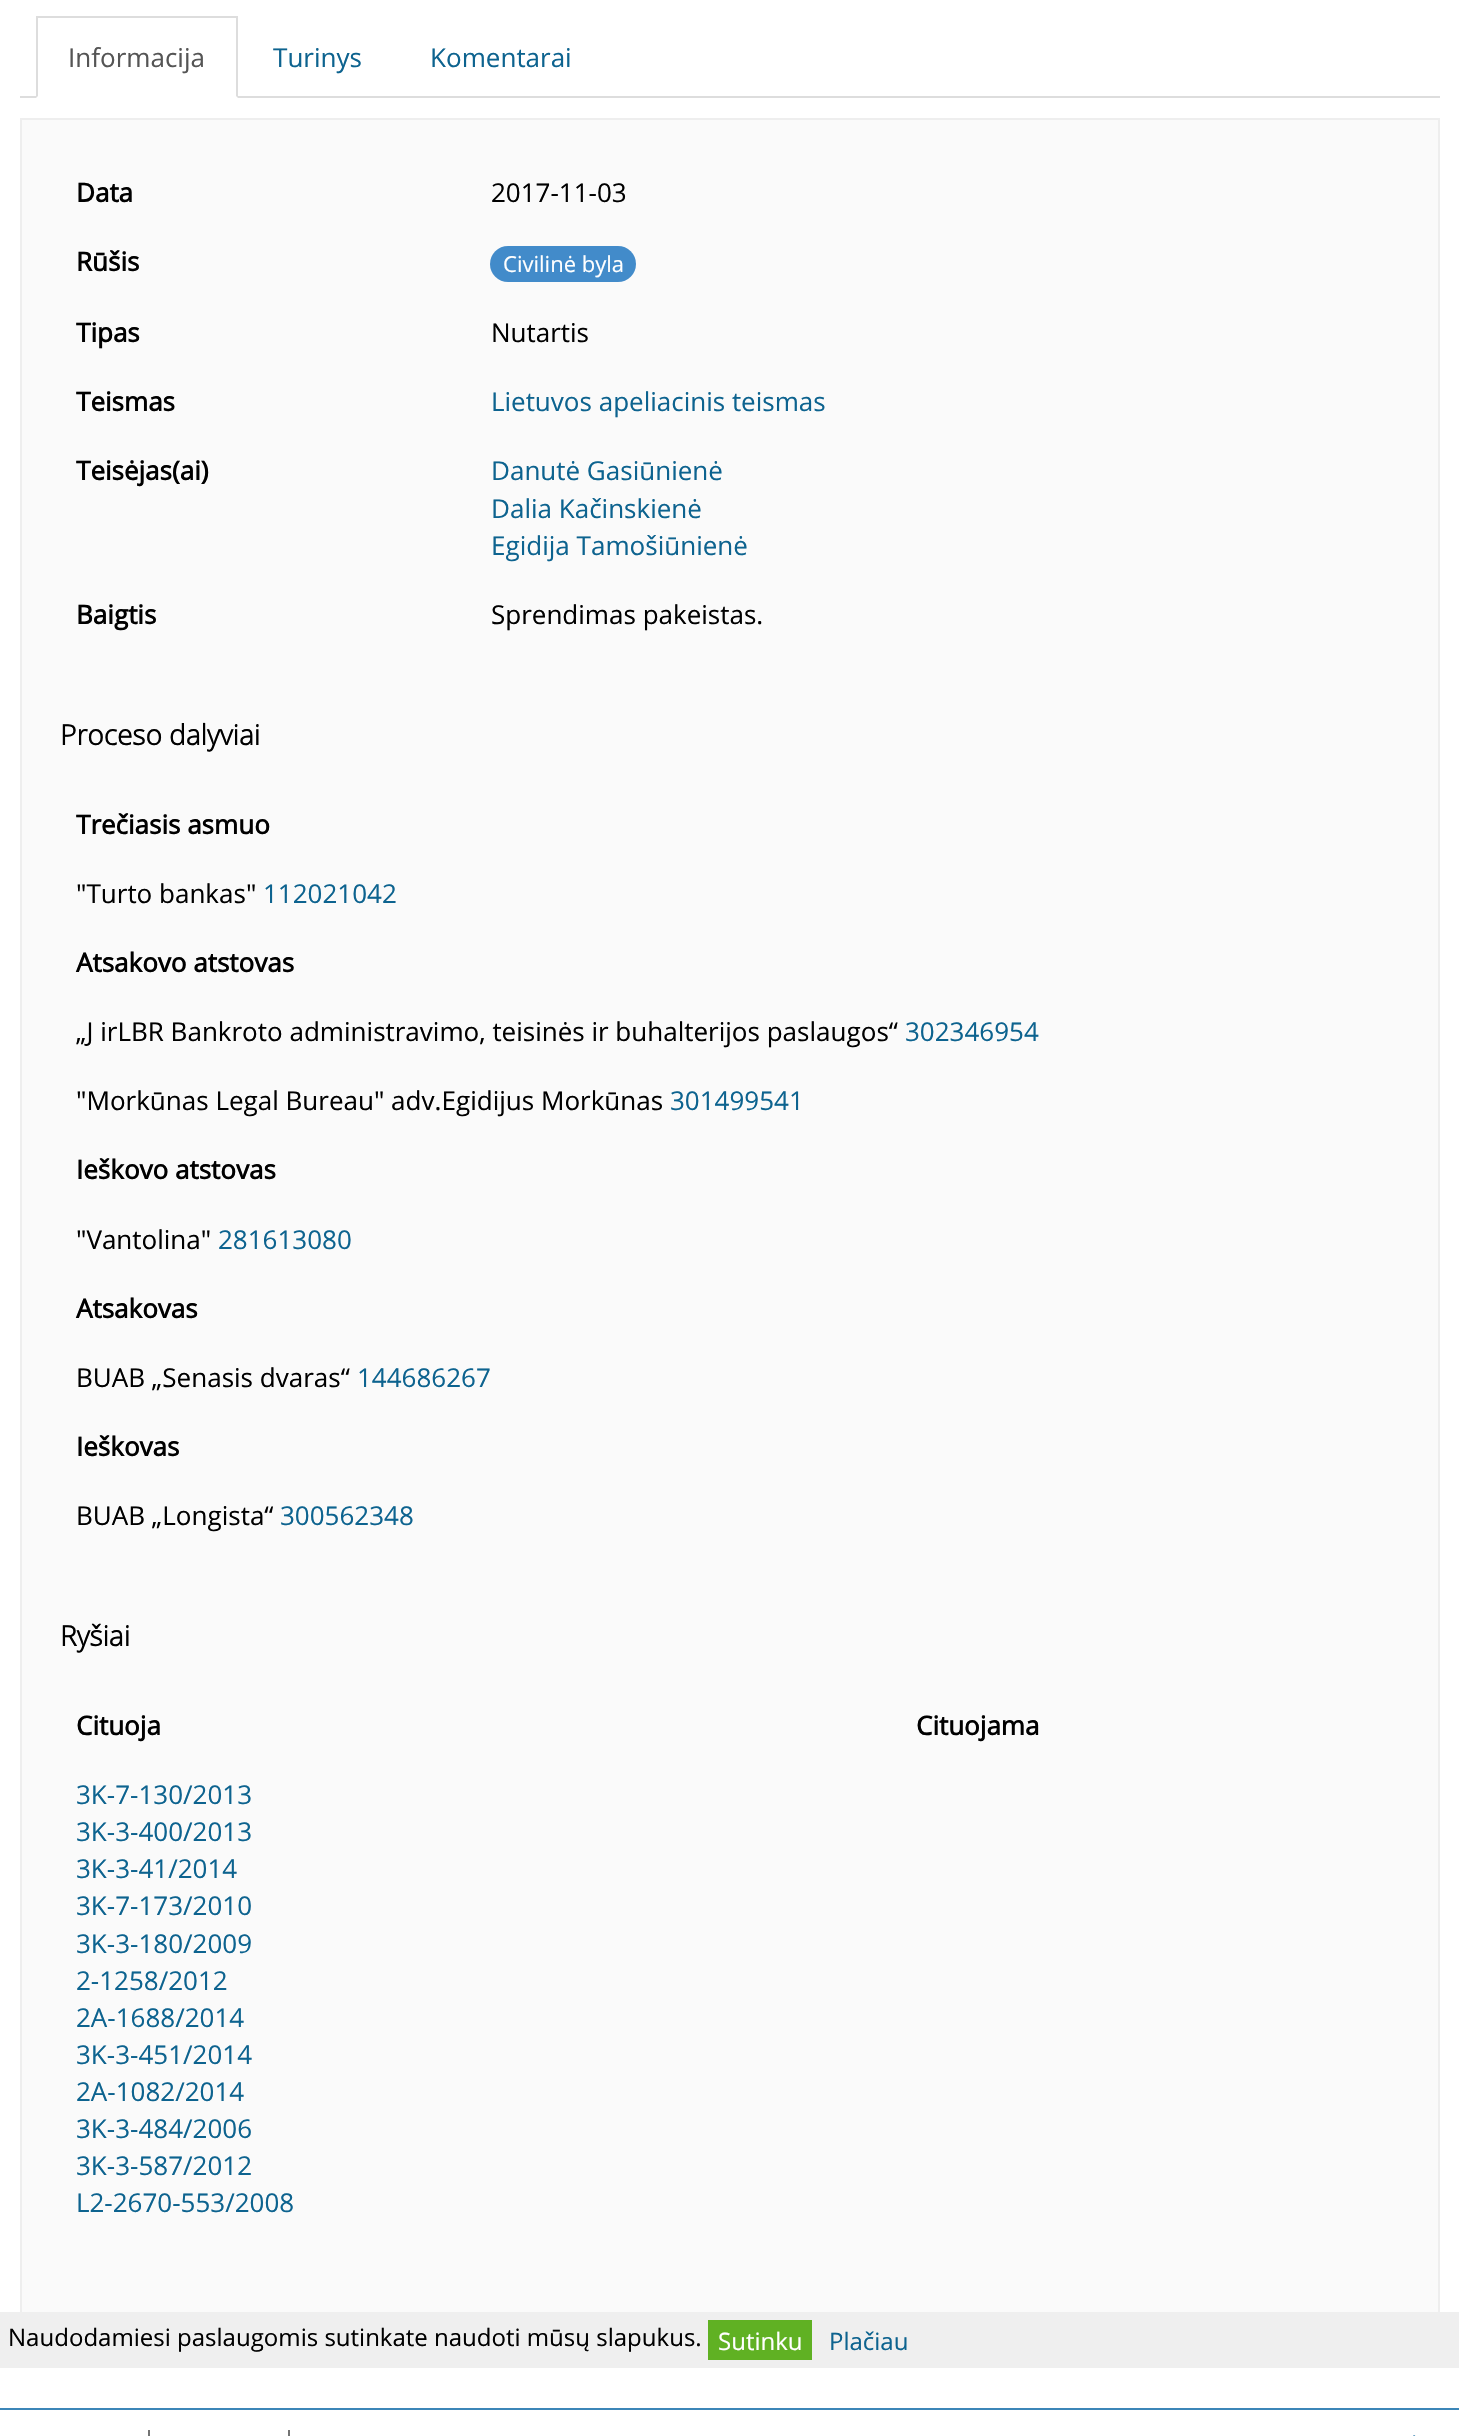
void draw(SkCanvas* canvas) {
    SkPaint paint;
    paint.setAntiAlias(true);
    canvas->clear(0xFFFFFFFF);
    paint.setColor(0xFFDDDDDD);
    canvas->drawRect(SkRect::MakeXYWH(20, 96, 1420, 2), paint);
    paint.setColor(0xFFFFFFFF);
    canvas->drawRect(SkRect::MakeXYWH(36, 96, 202, 2), paint);
    paint.setColor(0xFFDDDDDD);
    canvas->drawRect(SkRect::MakeXYWH(36, 16, 202, 2), paint);
    canvas->drawPath(SkPathBuilder().moveTo(238, 16).lineTo(238, 98).lineTo(236, 96).lineTo(236, 18).close().detach(), paint);
    canvas->drawPath(SkPathBuilder().moveTo(36, 98).lineTo(36, 16).lineTo(38, 18).lineTo(38, 96).close().detach(), paint);
    SkFont font1(fontMgr->matchFamilyStyle("Open Sans", SkFontStyle::Normal()), 26);
    font1.setSubpixel(true);
    paint.setColor(0xFF555555);
    canvas->drawString("Informacija", 68, 67, font1, paint);
    paint.setColor(0xFF0D638F);
    canvas->drawString("Turinys", 273, 67, font1, paint);
    canvas->drawString("Komentarai", 430, 67, font1, paint);
    paint.setColor(0xFFFAFAFA);
    canvas->drawRect(SkRect::MakeXYWH(22, 120, 1416, 2192), paint);
    paint.setStyle(SkPaint::kStroke_Style);
    paint.setStrokeWidth(2);
    paint.setColor(0xFFEEEEEE);
    canvas->drawRect(SkRect::MakeXYWH(21, 119, 1418, 2228), paint);
    SkFont font2(fontMgr->matchFamilyStyle("Open Sans", SkFontStyle::Bold()), 26);
    font2.setSubpixel(true);
    paint.setStyle(SkPaint::kFill_Style);
    paint.setColor(0xFF000000);
    canvas->drawString("Data", 76, 202, font2, paint);
    canvas->drawString("2017-11-03", 491, 202, font1, paint);
    canvas->drawString("Rūšis", 76, 271, font2, paint);
    paint.setColor(0xFF428BCA);
    canvas->drawRoundRect(SkRect::MakeXYWH(490, 246, 146, 36), 18, 18, paint);
    SkFont font3(fontMgr->matchFamilyStyle("Open Sans", SkFontStyle::Normal()), 22);
    font3.setSubpixel(true);
    paint.setColor(0xFFFFFFFF);
    canvas->drawString("Civilinė byla", 503, 272, font3, paint);
    paint.setColor(0xFF000000);
    canvas->drawString("Tipas", 76, 342, font2, paint);
    canvas->drawString("Nutartis", 491, 342, font1, paint);
    canvas->drawString("Teismas", 76, 411, font2, paint);
    paint.setColor(0xFF0D638F);
    canvas->drawString("Lietuvos apeliacinis teismas", 491, 411, font1, paint);
    paint.setColor(0xFF000000);
    canvas->drawString("Teisėjas(ai)", 76, 480, font2, paint);
    paint.setColor(0xFF0D638F);
    canvas->drawString("Danutė Gasiūnienė", 491, 480, font1, paint);
    canvas->drawString("Dalia Kačinskienė", 491, 518, font1, paint);
    canvas->drawString("Egidija Tamošiūnienė", 491, 555, font1, paint);
    paint.setColor(0xFF000000);
    canvas->drawString("Baigtis", 76, 624, font2, paint);
    canvas->drawString("Sprendimas pakeistas.", 491, 624, font1, paint);
    SkFont font4(fontMgr->matchFamilyStyle("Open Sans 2", SkFontStyle::Bold()), 28);
    font4.setSubpixel(true);
    canvas->drawString("Proceso dalyviai", 60, 745, font4, paint);
    canvas->drawString("Trečiasis asmuo", 76, 834, font2, paint);
    canvas->drawString("\"Turto bankas\"", 76, 903, font1, paint);
    paint.setColor(0xFF0D638F);
    canvas->drawString("112021042", 263, 903, font1, paint);
    paint.setColor(0xFF000000);
    canvas->drawString("Atsakovo atstovas", 76, 972, font2, paint);
    canvas->drawString("„J irLBR Bankroto administravimo, teisinės ir buhalterijos paslaugos“", 76, 1041, font1, paint);
    paint.setColor(0xFF0D638F);
    canvas->drawString("302346954", 905, 1041, font1, paint);
    paint.setColor(0xFF000000);
    canvas->drawString("\"Morkūnas Legal Bureau\" adv.Egidijus Morkūnas", 76, 1110, font1, paint);
    paint.setColor(0xFF0D638F);
    canvas->drawString("301499541", 670, 1110, font1, paint);
    paint.setColor(0xFF000000);
    canvas->drawString("Ieškovo atstovas", 76, 1179, font2, paint);
    canvas->drawString("\"Vantolina\"", 76, 1249, font1, paint);
    paint.setColor(0xFF0D638F);
    canvas->drawString("281613080", 218, 1249, font1, paint);
    paint.setColor(0xFF000000);
    canvas->drawString("Atsakovas", 76, 1318, font2, paint);
    canvas->drawString("BUAB „Senasis dvaras“", 76, 1387, font1, paint);
    paint.setColor(0xFF0D638F);
    canvas->drawString("144686267", 357, 1387, font1, paint);
    paint.setColor(0xFF000000);
    canvas->drawString("Ieškovas", 76, 1456, font2, paint);
    canvas->drawString("BUAB „Longista“", 76, 1525, font1, paint);
    paint.setColor(0xFF0D638F);
    canvas->drawString("300562348", 280, 1525, font1, paint);
    paint.setColor(0xFF000000);
    canvas->drawString("Ryšiai", 60, 1646, font4, paint);
    canvas->drawString("Cituoja", 76, 1735, font2, paint);
    canvas->drawString("Cituojama", 916, 1735, font2, paint);
    paint.setColor(0xFF0D638F);
    canvas->drawString("3K-7-130/2013", 76, 1804, font1, paint);
    canvas->drawString("3K-3-400/2013", 76, 1841, font1, paint);
    canvas->drawString("3K-3-41/2014", 76, 1878, font1, paint);
    canvas->drawString("3K-7-173/2010", 76, 1915, font1, paint);
    canvas->drawString("3K-3-180/2009", 76, 1953, font1, paint);
    canvas->drawString("2-1258/2012", 76, 1990, font1, paint);
    canvas->drawString("2A-1688/2014", 76, 2027, font1, paint);
    canvas->drawString("3K-3-451/2014", 76, 2064, font1, paint);
    canvas->drawString("2A-1082/2014", 76, 2101, font1, paint);
    canvas->drawString("3K-3-484/2006", 76, 2138, font1, paint);
    canvas->drawString("3K-3-587/2012", 76, 2175, font1, paint);
    canvas->drawString("L2-2670-553/2008", 76, 2212, font1, paint);
    paint.setColor(0xFFEFEFEF);
    canvas->drawRect(SkRect::MakeXYWH(0, 2312, 1459, 56), paint);
    SkFont font5(fontMgr->matchFamilyStyle("Open Sans", SkFontStyle::Normal()), 24);
    font5.setSubpixel(true);
    paint.setColor(0xFF000000);
    canvas->drawString("Naudodamiesi paslaugomis sutinkate naudoti mūsų slapukus.", 8, 2346, font5, paint);
    paint.setColor(0xFF60B123);
    canvas->drawRect(SkRect::MakeXYWH(708, 2320, 104, 40), paint);
    paint.setColor(0xFFFFFFFF);
    canvas->drawString("Sutinku", 718, 2350, font5, paint);
    paint.setColor(0xFF0D638F);
    canvas->drawString("Plačiau", 829, 2350, font5, paint);
    paint.setColor(0xFF3C86B8);
    canvas->drawRect(SkRect::MakeXYWH(0, 2408, 1459, 2), paint);
    paint.setColor(0xFF747474);
    canvas->drawRect(SkRect::MakeXYWH(148, 2430, 2, 6), paint);
    canvas->drawRect(SkRect::MakeXYWH(288, 2430, 2, 6), paint);
    canvas->drawImageRect(SkImages::DeferredFromEncodedData(SkData::MakeFromFileName("img1.png")), SkRect::MakeXYWH(1413, 2435, 3, 1), SkSamplingOptions());
}
